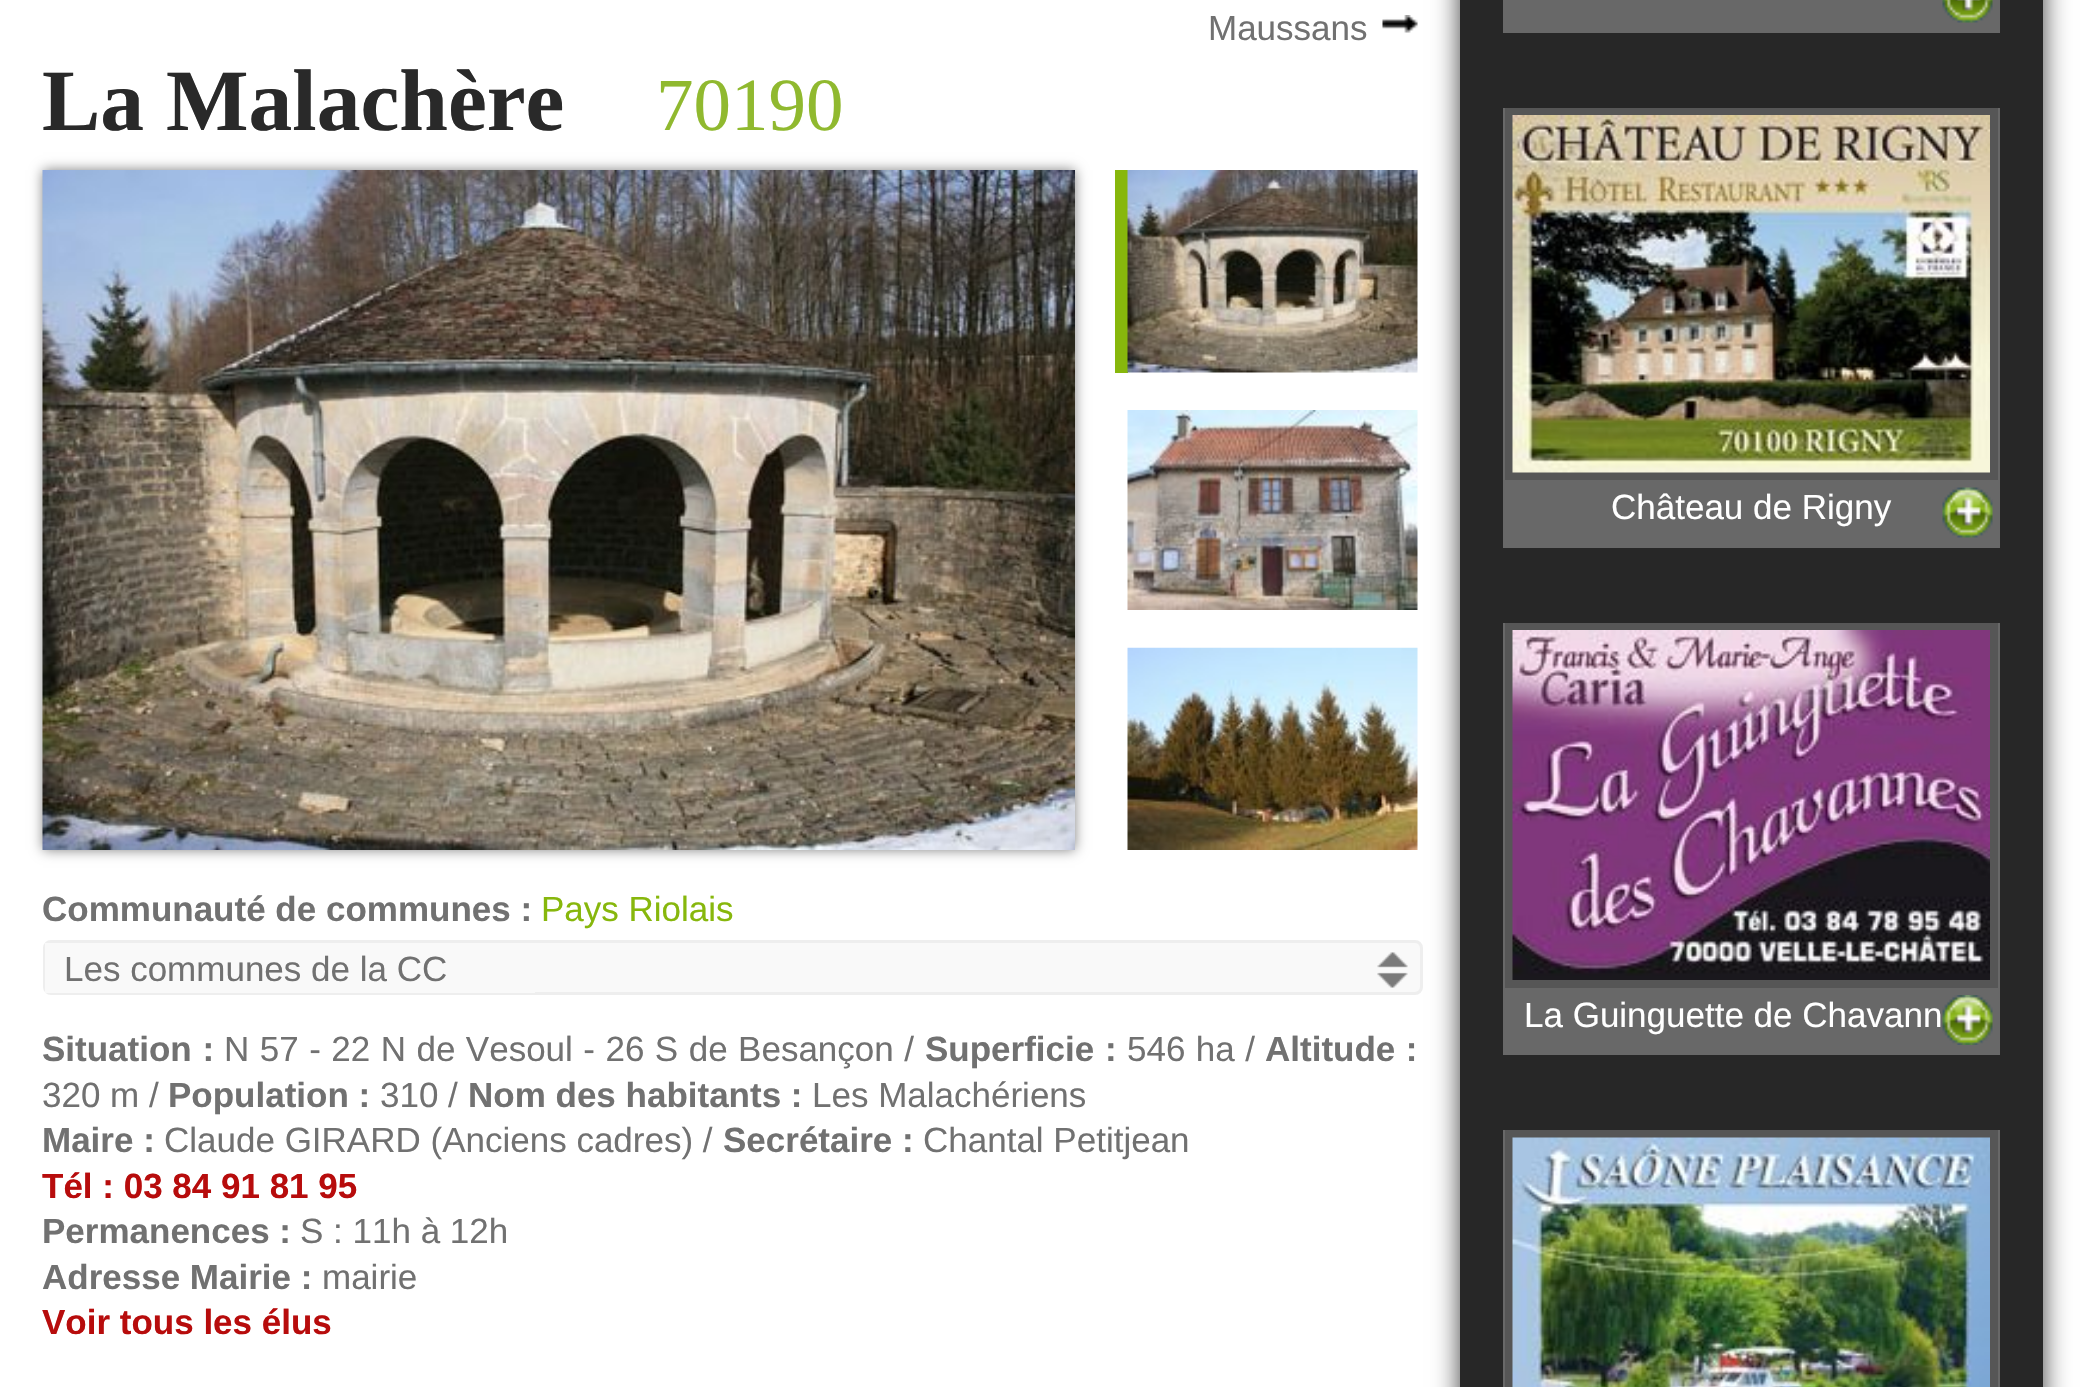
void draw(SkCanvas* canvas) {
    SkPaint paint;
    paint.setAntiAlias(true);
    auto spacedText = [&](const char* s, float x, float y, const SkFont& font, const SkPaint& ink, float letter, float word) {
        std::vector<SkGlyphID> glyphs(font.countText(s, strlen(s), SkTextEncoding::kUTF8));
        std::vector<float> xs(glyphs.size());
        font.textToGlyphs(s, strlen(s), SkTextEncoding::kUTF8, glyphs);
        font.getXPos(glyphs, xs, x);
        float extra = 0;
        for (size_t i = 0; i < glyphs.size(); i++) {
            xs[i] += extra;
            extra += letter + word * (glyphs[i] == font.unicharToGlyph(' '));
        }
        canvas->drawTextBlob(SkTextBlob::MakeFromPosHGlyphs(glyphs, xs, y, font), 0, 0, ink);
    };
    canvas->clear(0xFFFFFFFF);
    canvas->drawImageRect(SkImages::DeferredFromEncodedData(SkData::MakeFromFileName("img1.png")), SkRect::MakeXYWH(1382, 15, 36, 18), SkSamplingOptions());
    SkFont font1(fontMgr->matchFamilyStyle("Liberation Sans", SkFontStyle::Normal()), 35);
    font1.setSubpixel(true);
    paint.setColor(0xFF717171);
    canvas->drawString("Maussans", 1208, 40, font1, paint);
    SkFont font2(fontMgr->matchFamilyStyle("Liberation Serif", SkFontStyle::Bold()), 87.5f);
    font2.setSubpixel(true);
    paint.setColor(0xFF292929);
    canvas->drawString("La Malachère", 42, 130, font2, paint);
    SkFont font3(fontMgr->matchFamilyStyle("Liberation Serif", SkFontStyle::Normal()), 75);
    font3.setSubpixel(true);
    paint.setColor(0xFF90B92F);
    canvas->drawString("70190", 656, 130, font3, paint);
    paint.setColor(0x80000000);
    paint.setMaskFilter(SkMaskFilter::MakeBlur(kNormal_SkBlurStyle, 6));
    canvas->drawRect(SkRect::MakeXYWH(43, 170, 1032, 680), paint);
    paint.setMaskFilter(nullptr);
    canvas->drawImageRect(SkImages::DeferredFromEncodedData(SkData::MakeFromFileName("img2.png")), SkRect::MakeXYWH(42, 170, 1033, 680), SkSamplingOptions());
    paint.setColor(0xFF87B70C);
    canvas->drawRect(SkRect::MakeXYWH(1115, 170, 13, 203), paint);
    canvas->drawImageRect(SkImages::DeferredFromEncodedData(SkData::MakeFromFileName("img3.png")), SkRect::MakeXYWH(1127, 170, 291, 203), SkSamplingOptions());
    canvas->drawImageRect(SkImages::DeferredFromEncodedData(SkData::MakeFromFileName("img4.png")), SkRect::MakeXYWH(1127, 410, 291, 200), SkSamplingOptions());
    canvas->drawImageRect(SkImages::DeferredFromEncodedData(SkData::MakeFromFileName("img5.png")), SkRect::MakeXYWH(1127, 647, 291, 203), SkSamplingOptions());
    SkFont font4(fontMgr->matchFamilyStyle("Liberation Sans", SkFontStyle::Bold()), 35);
    font4.setSubpixel(true);
    paint.setColor(0xFF717171);
    canvas->drawString("Communauté de communes :", 42, 921, font4, paint);
    paint.setColor(0xFF87B70C);
    canvas->drawString("Pays Riolais", 541, 921, font1, paint);
    paint.setColor(0xBF000000);
    paint.setMaskFilter(SkMaskFilter::MakeBlur(kNormal_SkBlurStyle, 12.5f));
    canvas->drawRect(SkRect::MakeXYWH(1460, -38, 583, 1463), paint);
    paint.setMaskFilter(nullptr);
    paint.setColor(0xFFF9F9F9);
    canvas->drawRoundRect(SkRect::MakeXYWH(44.5f, 941.5f, 1377, 52), 6.5f, 6.5f, paint);
    paint.setStyle(SkPaint::kStroke_Style);
    paint.setStrokeWidth(3);
    paint.setColor(0xFFEEEEEE);
    canvas->drawRoundRect(SkRect::MakeXYWH(44.5f, 941.5f, 1377, 52), 6.5f, 6.5f, paint);
    paint.setStyle(SkPaint::kFill_Style);
    paint.setColor(0xFFF9F9F9);
    canvas->drawRect(SkRect::MakeXYWH(45, 943, 490, 50), paint);
    paint.setColor(0xFF717171);
    canvas->drawString("Les communes de la CC", 64, 981, font1, paint);
    canvas->drawImageRect(SkImages::DeferredFromEncodedData(SkData::MakeFromFileName("img6.png")), SkRect::MakeXYWH(1377, 952, 31, 36), SkSamplingOptions());
    spacedText("Situation :", 42, 1061, font4, paint, 0, 1);
    spacedText("N 57 - 22 N de Vesoul - 26 S de Besançon /", 224, 1061, font1, paint, 0, 0.75f);
    spacedText("Superficie :", 925, 1061, font4, paint, 0, 1);
    spacedText("546 ha /", 1127, 1061, font1, paint, 0, 0.75f);
    spacedText("Altitude :", 1265, 1061, font4, paint, 0, 0.75f);
    canvas->drawString("320 m /", 42, 1107, font1, paint);
    canvas->drawString("Population :", 168, 1107, font4, paint);
    canvas->drawString("310 /", 380, 1107, font1, paint);
    canvas->drawString("Nom des habitants :", 468, 1107, font4, paint);
    canvas->drawString("Les Malachériens", 812, 1107, font1, paint);
    canvas->drawString("Maire :", 42, 1152, font4, paint);
    canvas->drawString("Claude GIRARD (Anciens cadres) /", 164, 1152, font1, paint);
    canvas->drawString("Secrétaire :", 723, 1152, font4, paint);
    canvas->drawString("Chantal Petitjean", 923, 1152, font1, paint);
    paint.setColor(0xFFB70C0C);
    canvas->drawString("Tél : 03 84 91 81 95", 42, 1198, font4, paint);
    paint.setColor(0xFF717171);
    canvas->drawString("Permanences :", 42, 1243, font4, paint);
    canvas->drawString("S : 11h à 12h", 300, 1243, font1, paint);
    canvas->drawString("Adresse Mairie :", 42, 1289, font4, paint);
    canvas->drawString("mairie", 322, 1289, font1, paint);
    paint.setColor(0xFFB70C0C);
    canvas->drawString("Voir tous les élus", 42, 1334, font4, paint);
    paint.setColor(0xFF272727);
    canvas->drawRect(SkRect::MakeXYWH(1460, 0, 583, 1387), paint);
    paint.setColor(0xFF686868);
    canvas->drawRect(SkRect::MakeXYWH(1503, 0, 497, 33), paint);
    canvas->drawImageRect(SkImages::DeferredFromEncodedData(SkData::MakeFromFileName("img7.png")), SkRect::MakeXYWH(1942, 0, 51, 23), SkSamplingOptions());
    canvas->drawRect(SkRect::MakeXYWH(1503, 108, 497, 440), paint);
    paint.setStyle(SkPaint::kStroke_Style);
    paint.setStrokeWidth(8);
    paint.setColor(0xFF565656);
    canvas->drawRect(SkRect::MakeXYWH(1509, 112, 485, 364), paint);
    canvas->drawImageRect(SkImages::DeferredFromEncodedData(SkData::MakeFromFileName("img8.png")), SkRect::MakeXYWH(1512, 115, 478, 358), SkSamplingOptions());
    paint.setStyle(SkPaint::kFill_Style);
    paint.setColor(0xFFFFFFFF);
    canvas->drawString("Château de Rigny", 1611, 519, font1, paint);
    canvas->drawImageRect(SkImages::DeferredFromEncodedData(SkData::MakeFromFileName("img9.png")), SkRect::MakeXYWH(1942, 487, 51, 51), SkSamplingOptions());
    paint.setColor(0xFF686868);
    canvas->drawRect(SkRect::MakeXYWH(1503, 623, 497, 432), paint);
    paint.setStyle(SkPaint::kStroke_Style);
    paint.setColor(0xFF565656);
    canvas->drawRect(SkRect::MakeXYWH(1509, 627, 485, 357), paint);
    canvas->drawImageRect(SkImages::DeferredFromEncodedData(SkData::MakeFromFileName("img10.png")), SkRect::MakeXYWH(1512, 630, 478, 350), SkSamplingOptions());
    paint.setStyle(SkPaint::kFill_Style);
    paint.setColor(0xFFFFFFFF);
    canvas->drawString("La Guinguette de Chavann", 1524, 1027, font1, paint);
    canvas->drawImageRect(SkImages::DeferredFromEncodedData(SkData::MakeFromFileName("img11.png")), SkRect::MakeXYWH(1942, 995, 51, 50), SkSamplingOptions());
    paint.setColor(0xFF686868);
    canvas->drawRect(SkRect::MakeXYWH(1503, 1130, 497, 257), paint);
    paint.setStyle(SkPaint::kStroke_Style);
    paint.setColor(0xFF565656);
    canvas->drawRect(SkRect::MakeXYWH(1509, 1134, 485, 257), paint);
    canvas->drawImageRect(SkImages::DeferredFromEncodedData(SkData::MakeFromFileName("img12.png")), SkRect::MakeXYWH(1512, 1137, 478, 250), SkSamplingOptions());
}
